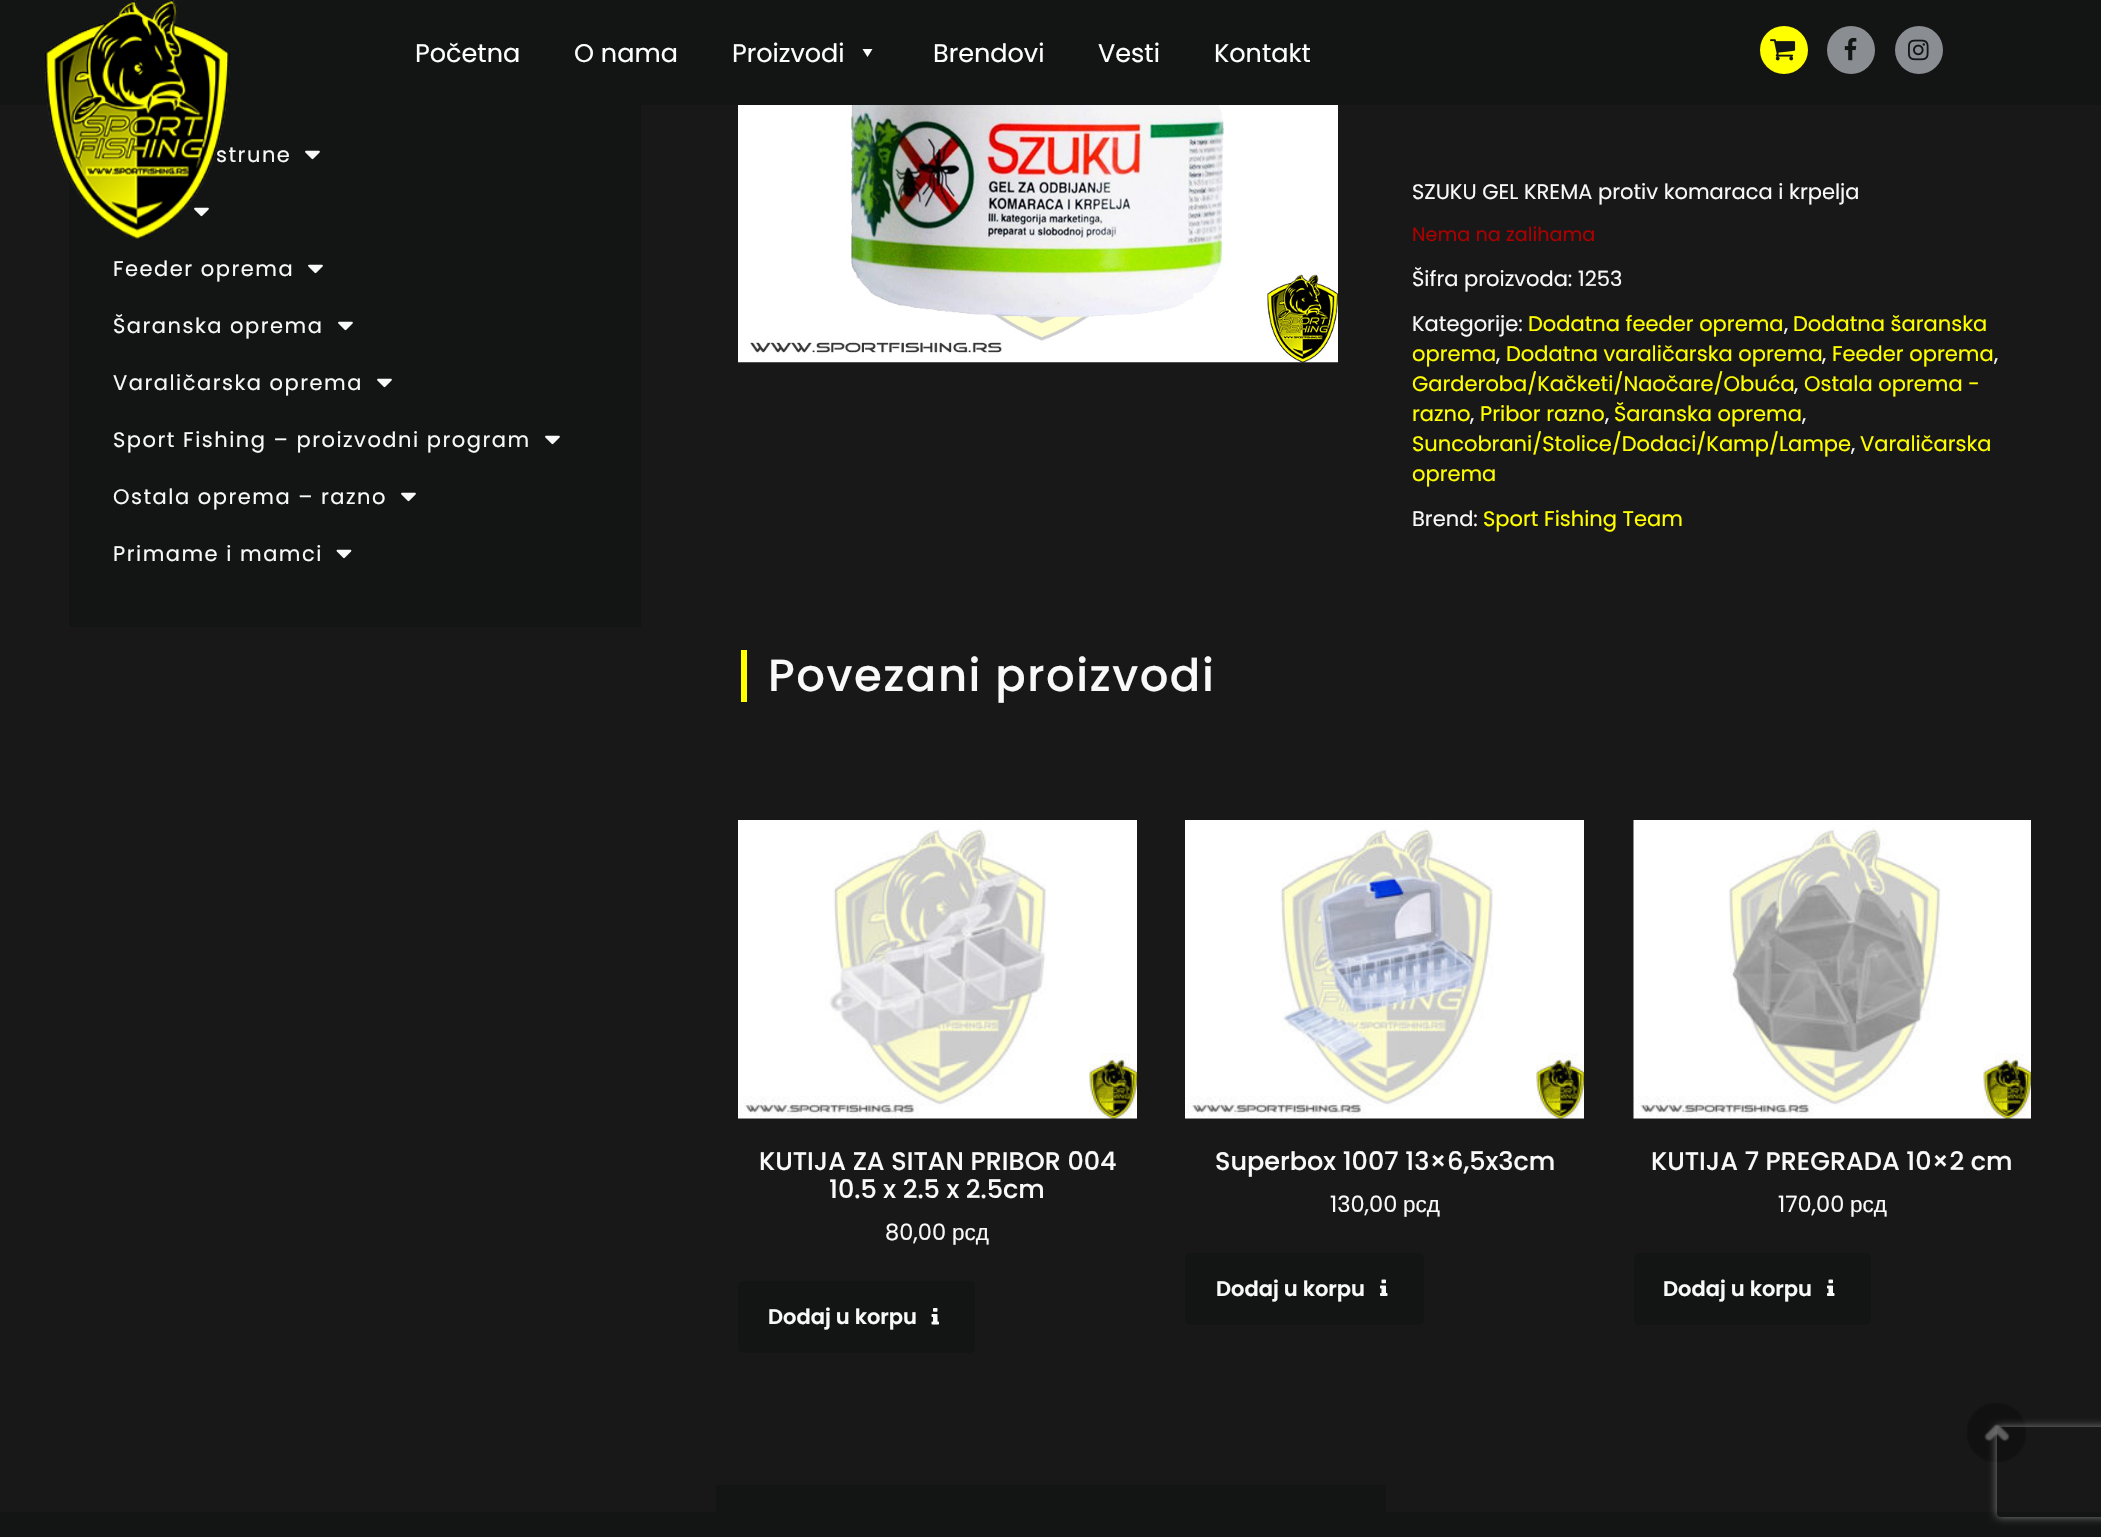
void draw(SkCanvas* canvas) {
    SkPaint paint;
    paint.setAntiAlias(true);
    auto spacedText = [&](const char* s, float x, float y, const SkFont& font, const SkPaint& ink, float letter, float word) {
        std::vector<SkGlyphID> glyphs(font.countText(s, strlen(s), SkTextEncoding::kUTF8));
        std::vector<float> xs(glyphs.size());
        font.textToGlyphs(s, strlen(s), SkTextEncoding::kUTF8, glyphs);
        font.getXPos(glyphs, xs, x);
        float extra = 0;
        for (size_t i = 0; i < glyphs.size(); i++) {
            xs[i] += extra;
            extra += letter + word * (glyphs[i] == font.unicharToGlyph(' '));
        }
        canvas->drawTextBlob(SkTextBlob::MakeFromPosHGlyphs(glyphs, xs, y, font), 0, 0, ink);
    };
    canvas->clear(0xFF181818);
    paint.setColor(0xFF131414);
    canvas->drawRect(SkRect::MakeXYWH(0, 0, 2101, 105), paint);
    canvas->drawRect(SkRect::MakeXYWH(69, 105, 572, 522), paint);
    SkFont font1(fontMgr->matchFamilyStyle("Poppins", SkFontStyle::Normal()), 21);
    font1.setSubpixel(true);
    paint.setColor(0xFFF9F9F9);
    spacedText("strune", 216, 162, font1, paint, 1.5f, 0);
    canvas->drawImageRect(SkImages::DeferredFromEncodedData(SkData::MakeFromFileName("img5.png")), SkRect::MakeXYWH(194, 207, 15, 10), SkSamplingOptions());
    canvas->drawImageRect(SkImages::DeferredFromEncodedData(SkData::MakeFromFileName("img1.png")), SkRect::MakeXYWH(45, 0, 185, 240), SkSamplingOptions());
    SkFont font2(fontMgr->matchFamilyStyle("Poppins", SkFontStyle::Normal()), 25.5f);
    font2.setSubpixel(true);
    paint.setColor(0xFFFFFFFF);
    canvas->drawString("Početna", 415, 62, font2, paint);
    canvas->drawString("O nama", 574, 62, font2, paint);
    canvas->drawString("Proizvodi", 732, 62, font2, paint);
    canvas->drawPath(SkPathBuilder().moveTo(872.5f, 49).lineTo(867.5f, 57).lineTo(862.5f, 49).close().detach(), paint);
    canvas->drawString("Brendovi", 933, 62, font2, paint);
    canvas->drawString("Vesti", 1098, 62, font2, paint);
    canvas->drawString("Kontakt", 1214, 62, font2, paint);
    paint.setColor(0xFFFFFF00);
    canvas->drawCircle(1784, 50, 24, paint);
    canvas->drawImageRect(SkImages::DeferredFromEncodedData(SkData::MakeFromFileName("img2.png")), SkRect::MakeXYWH(1770, 39, 26, 22), SkSamplingOptions());
    paint.setColor(0xFF8A8E93);
    canvas->drawCircle(1851, 50, 24, paint);
    canvas->drawImageRect(SkImages::DeferredFromEncodedData(SkData::MakeFromFileName("img3.png")), SkRect::MakeXYWH(1844, 37, 13, 24), SkSamplingOptions());
    canvas->drawCircle(1919, 50, 24, paint);
    canvas->drawImageRect(SkImages::DeferredFromEncodedData(SkData::MakeFromFileName("img4.png")), SkRect::MakeXYWH(1908, 39, 21, 22), SkSamplingOptions());
    canvas->drawImageRect(SkImages::DeferredFromEncodedData(SkData::MakeFromFileName("img5.png")), SkRect::MakeXYWH(305, 150, 15, 10), SkSamplingOptions());
    paint.setColor(0xFFF9F9F9);
    spacedText("Feeder oprema", 113, 276, font1, paint, 1.5f, 0);
    canvas->drawImageRect(SkImages::DeferredFromEncodedData(SkData::MakeFromFileName("img5.png")), SkRect::MakeXYWH(308, 264, 15, 10), SkSamplingOptions());
    spacedText("Šaranska oprema", 113, 333, font1, paint, 1.5f, 0);
    canvas->drawImageRect(SkImages::DeferredFromEncodedData(SkData::MakeFromFileName("img5.png")), SkRect::MakeXYWH(338, 321, 15, 10), SkSamplingOptions());
    spacedText("Varaličarska oprema", 113, 390, font1, paint, 1.5f, 0);
    canvas->drawImageRect(SkImages::DeferredFromEncodedData(SkData::MakeFromFileName("img5.png")), SkRect::MakeXYWH(377, 378, 15, 10), SkSamplingOptions());
    spacedText("Sport Fishing – proizvodni program", 113, 447, font1, paint, 1.5f, 0);
    canvas->drawImageRect(SkImages::DeferredFromEncodedData(SkData::MakeFromFileName("img5.png")), SkRect::MakeXYWH(545, 435, 15, 10), SkSamplingOptions());
    spacedText("Ostala oprema – razno", 113, 504, font1, paint, 1.5f, 0);
    canvas->drawImageRect(SkImages::DeferredFromEncodedData(SkData::MakeFromFileName("img5.png")), SkRect::MakeXYWH(401, 492, 15, 10), SkSamplingOptions());
    spacedText("Primame i mamci", 113, 561, font1, paint, 1.5f, 0);
    canvas->drawImageRect(SkImages::DeferredFromEncodedData(SkData::MakeFromFileName("img6.png")), SkRect::MakeXYWH(336, 549, 16, 10), SkSamplingOptions());
    canvas->drawImageRect(SkImages::DeferredFromEncodedData(SkData::MakeFromFileName("img7.png")), SkRect::MakeXYWH(738, 105, 600, 258), SkSamplingOptions());
    canvas->drawString("SZUKU GEL KREMA protiv komaraca i krpelja", 1412, 199, font1, paint);
    SkFont font3(fontMgr->matchFamilyStyle("Poppins", SkFontStyle::Normal()), 19.25f);
    font3.setSubpixel(true);
    paint.setColor(0xFFAA0000);
    canvas->drawString("Nema na zalihama", 1412, 241, font3, paint);
    paint.setColor(0xFFF9F9F9);
    canvas->drawString("Šifra proizvoda: 1253", 1412, 286, font1, paint);
    canvas->drawString("Kategorije:", 1412, 331, font1, paint);
    paint.setColor(0xFFFFFF00);
    canvas->drawString("Dodatna feeder oprema", 1528, 331, font1, paint);
    paint.setColor(0xFFF9F9F9);
    canvas->drawString(",", 1784, 331, font1, paint);
    paint.setColor(0xFFFFFF00);
    canvas->drawString("Dodatna šaranska", 1793, 331, font1, paint);
    canvas->drawString("oprema", 1412, 361, font1, paint);
    paint.setColor(0xFFF9F9F9);
    canvas->drawString(",", 1496, 361, font1, paint);
    paint.setColor(0xFFFFFF00);
    canvas->drawString("Dodatna varaličarska oprema", 1506, 361, font1, paint);
    paint.setColor(0xFFF9F9F9);
    canvas->drawString(",", 1822, 361, font1, paint);
    paint.setColor(0xFFFFFF00);
    canvas->drawString("Feeder oprema", 1832, 361, font1, paint);
    paint.setColor(0xFFF9F9F9);
    canvas->drawString(",", 1994, 361, font1, paint);
    paint.setColor(0xFFFFFF00);
    canvas->drawString("Garderoba/Kačketi/Naočare/Obuća", 1412, 391, font1, paint);
    paint.setColor(0xFFF9F9F9);
    canvas->drawString(",", 1794, 391, font1, paint);
    paint.setColor(0xFFFFFF00);
    canvas->drawString("Ostala oprema -", 1804, 391, font1, paint);
    canvas->drawString("razno", 1412, 421, font1, paint);
    paint.setColor(0xFFF9F9F9);
    canvas->drawString(",", 1470, 421, font1, paint);
    paint.setColor(0xFFFFFF00);
    canvas->drawString("Pribor razno", 1480, 421, font1, paint);
    paint.setColor(0xFFF9F9F9);
    canvas->drawString(",", 1605, 421, font1, paint);
    paint.setColor(0xFFFFFF00);
    canvas->drawString("Šaranska oprema", 1614, 421, font1, paint);
    paint.setColor(0xFFF9F9F9);
    canvas->drawString(",", 1802, 421, font1, paint);
    paint.setColor(0xFFFFFF00);
    canvas->drawString("Suncobrani/Stolice/Dodaci/Kamp/Lampe", 1412, 451, font1, paint);
    paint.setColor(0xFFF9F9F9);
    canvas->drawString(",", 1851, 451, font1, paint);
    paint.setColor(0xFFFFFF00);
    canvas->drawString("Varaličarska", 1860, 451, font1, paint);
    canvas->drawString("oprema", 1412, 481, font1, paint);
    paint.setColor(0xFFF9F9F9);
    canvas->drawString("Brend:", 1412, 526, font1, paint);
    paint.setColor(0xFFFFFF00);
    canvas->drawString("Sport Fishing Team", 1483, 526, font1, paint);
    canvas->drawRect(SkRect::MakeXYWH(741, 650, 6, 52), paint);
    SkFont font4(fontMgr->matchFamilyStyle("Poppins", SkFontStyle(500, SkFontStyle::kNormal_Width, SkFontStyle::kUpright_Slant)), 45);
    font4.setSubpixel(true);
    paint.setColor(0xFFF9F9F9);
    spacedText("Povezani proizvodi", 768, 691, font4, paint, 1.5f, 0);
    canvas->drawImageRect(SkImages::DeferredFromEncodedData(SkData::MakeFromFileName("img8.png")), SkRect::MakeXYWH(738, 820, 399, 299), SkSamplingOptions());
    SkFont font5(fontMgr->matchFamilyStyle("Poppins", SkFontStyle(500, SkFontStyle::kNormal_Width, SkFontStyle::kUpright_Slant)), 25.5f);
    font5.setSubpixel(true);
    canvas->drawString("KUTIJA ZA SITAN PRIBOR 004", 759, 1170, font5, paint);
    canvas->drawString("10.5 x 2.5 x 2.5cm", 829, 1198, font5, paint);
    SkFont font6(fontMgr->matchFamilyStyle("Poppins", SkFontStyle::Normal()), 22.5f);
    font6.setSubpixel(true);
    canvas->drawString("80,00", 885, 1240, font6, paint);
    SkFont font7(fontMgr->matchFamilyStyle("Liberation Sans", SkFontStyle::Normal()), 22.5f);
    font7.setSubpixel(true);
    canvas->drawString("рсд", 952, 1240, font7, paint);
    paint.setColor(0xFF131414);
    canvas->drawRoundRect(SkRect::MakeXYWH(738, 1281, 237, 72), 5, 5, paint);
    SkFont font8(fontMgr->matchFamilyStyle("Poppins", SkFontStyle(600, SkFontStyle::kNormal_Width, SkFontStyle::kUpright_Slant)), 21);
    font8.setSubpixel(true);
    paint.setColor(0xFFF9F9F9);
    canvas->drawString("Dodaj u korpu", 768, 1324, font8, paint);
    canvas->drawImageRect(SkImages::DeferredFromEncodedData(SkData::MakeFromFileName("img9.png")), SkRect::MakeXYWH(931, 1308, 8, 17), SkSamplingOptions());
    canvas->drawImageRect(SkImages::DeferredFromEncodedData(SkData::MakeFromFileName("img10.png")), SkRect::MakeXYWH(1185, 820, 399, 299), SkSamplingOptions());
    canvas->drawString("Superbox 1007 13×6,5x3cm", 1215, 1170, font5, paint);
    canvas->drawString("130,00", 1330, 1212, font6, paint);
    canvas->drawString("рсд", 1403, 1212, font7, paint);
    paint.setColor(0xFF131414);
    canvas->drawRoundRect(SkRect::MakeXYWH(1185, 1253, 239, 72), 5, 5, paint);
    paint.setColor(0xFFF9F9F9);
    canvas->drawString("Dodaj u korpu", 1216, 1296, font8, paint);
    canvas->drawImageRect(SkImages::DeferredFromEncodedData(SkData::MakeFromFileName("img11.png")), SkRect::MakeXYWH(1380, 1279, 8, 17), SkSamplingOptions());
    canvas->drawImageRect(SkImages::DeferredFromEncodedData(SkData::MakeFromFileName("img12.png")), SkRect::MakeXYWH(1633, 820, 398, 299), SkSamplingOptions());
    canvas->drawString("KUTIJA 7 PREGRADA 10×2 cm", 1651, 1170, font5, paint);
    canvas->drawString("170,00", 1778, 1212, font6, paint);
    canvas->drawString("рсд", 1850, 1212, font7, paint);
    paint.setColor(0xFF131414);
    canvas->drawRoundRect(SkRect::MakeXYWH(1634, 1253, 237, 72), 5, 5, paint);
    paint.setColor(0xFFF9F9F9);
    canvas->drawString("Dodaj u korpu", 1663, 1296, font8, paint);
    canvas->drawImageRect(SkImages::DeferredFromEncodedData(SkData::MakeFromFileName("img11.png")), SkRect::MakeXYWH(1827, 1279, 8, 17), SkSamplingOptions());
    canvas->drawImageRect(SkImages::DeferredFromEncodedData(SkData::MakeFromFileName("img13.png")), SkRect::MakeXYWH(1967, 1403, 59, 59), SkSamplingOptions());
    paint.setColor(0xFF131414);
    canvas->drawRect(SkRect::MakeXYWH(0, 1512, 2101, 25), paint);
    canvas->save();
    canvas->clipPath(SkPathBuilder(SkPathFillType::kEvenOdd).moveTo(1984, 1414).lineTo(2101, 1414).lineTo(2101, 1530).lineTo(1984, 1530).close().moveTo(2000, 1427).lineTo(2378, 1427).cubicTo(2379.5f, 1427, 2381, 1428.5f, 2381, 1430).lineTo(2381, 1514).cubicTo(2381, 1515.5f, 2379.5f, 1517, 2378, 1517).lineTo(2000, 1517).cubicTo(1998.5f, 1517, 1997, 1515.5f, 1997, 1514).lineTo(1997, 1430).cubicTo(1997, 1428.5f, 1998.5f, 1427, 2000, 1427).close().detach(), true);
    paint.setColor(0xFF808080);
    paint.setMaskFilter(SkMaskFilter::MakeBlur(kNormal_SkBlurStyle, 4));
    canvas->drawRoundRect(SkRect::MakeXYWH(1997, 1427, 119, 90), 3, 3, paint);
    paint.setMaskFilter(nullptr);
    canvas->restore();
    paint.setColor(0xFF131414);
    canvas->drawRect(SkRect::MakeXYWH(716, 1485, 670, 27), paint);
}
